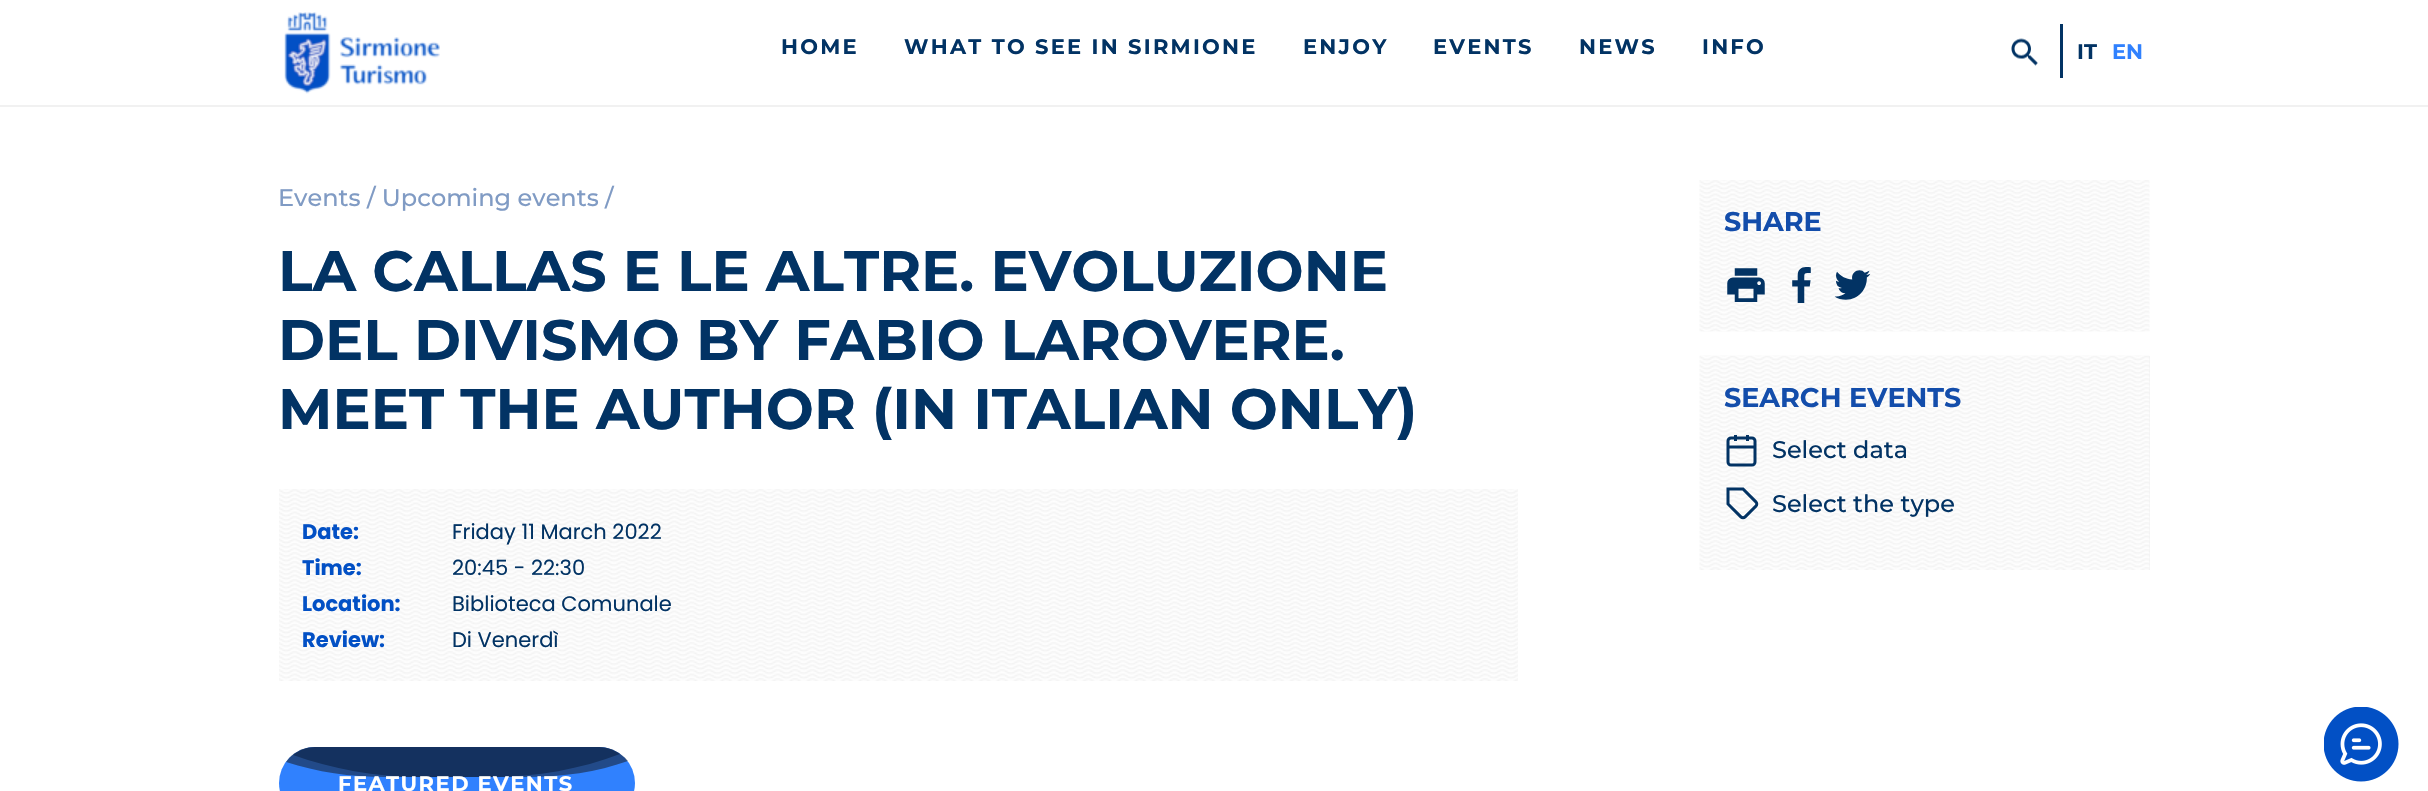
void draw(SkCanvas* canvas) {
    SkPaint paint;
    paint.setAntiAlias(true);
    auto spacedText = [&](const char* s, float x, float y, const SkFont& font, const SkPaint& ink, float letter, float word) {
        std::vector<SkGlyphID> glyphs(font.countText(s, strlen(s), SkTextEncoding::kUTF8));
        std::vector<float> xs(glyphs.size());
        font.textToGlyphs(s, strlen(s), SkTextEncoding::kUTF8, glyphs);
        font.getXPos(glyphs, xs, x);
        float extra = 0;
        for (size_t i = 0; i < glyphs.size(); i++) {
            xs[i] += extra;
            extra += letter + word * (glyphs[i] == font.unicharToGlyph(' '));
        }
        canvas->drawTextBlob(SkTextBlob::MakeFromPosHGlyphs(glyphs, xs, y, font), 0, 0, ink);
    };
    canvas->clear(0xFFFFFFFF);
    paint.setColor(0xFFF1F1F1);
    canvas->drawRect(SkRect::MakeXYWH(0, 105, 2428, 2), paint);
    canvas->drawImageRect(SkImages::DeferredFromEncodedData(SkData::MakeFromFileName("img1.png")), SkRect::MakeXYWH(284, 12, 156, 82), SkSamplingOptions());
    SkFont font1(fontMgr->matchFamilyStyle("Montserrat", SkFontStyle::Bold()), 21);
    font1.setSubpixel(true);
    paint.setColor(0xFF023364);
    spacedText("HOME", 781, 54, font1, paint, 2.25f, 0);
    spacedText("WHAT TO SEE IN SIRMIONE", 904, 54, font1, paint, 2.25f, 0);
    spacedText("ENJOY", 1303, 54, font1, paint, 2.25f, 0);
    spacedText("EVENTS", 1433, 54, font1, paint, 2.25f, 0);
    spacedText("NEWS", 1579, 54, font1, paint, 2.25f, 0);
    spacedText("INFO", 1702, 54, font1, paint, 2.25f, 0);
    canvas->drawImageRect(SkImages::DeferredFromEncodedData(SkData::MakeFromFileName("img2.png")), SkRect::MakeXYWH(2011, 38, 27, 28), SkSamplingOptions());
    canvas->drawRect(SkRect::MakeXYWH(2060, 24, 3, 54), paint);
    canvas->drawString("IT", 2077, 59, font1, paint);
    paint.setColor(0xFF3081FE);
    canvas->drawString("EN", 2112, 59, font1, paint);
    SkFont font2(fontMgr->matchFamilyStyle("Montserrat", SkFontStyle(500, SkFontStyle::kNormal_Width, SkFontStyle::kUpright_Slant)), 24);
    font2.setSubpixel(true);
    paint.setColor(0xFF809BC4);
    canvas->drawString("Events / Upcoming events /", 278, 206, font2, paint);
    SkFont font3(fontMgr->matchFamilyStyle("Montserrat", SkFontStyle::Bold()), 57);
    font3.setSubpixel(true);
    paint.setColor(0xFF023364);
    canvas->drawString("LA CALLAS E LE ALTRE. EVOLUZIONE", 278, 291, font3, paint);
    canvas->drawString("DEL DIVISMO BY FABIO LAROVERE.", 278, 360, font3, paint);
    canvas->drawString("MEET THE AUTHOR (IN ITALIAN ONLY)", 278, 429, font3, paint);
    canvas->drawImageRect(SkImages::DeferredFromEncodedData(SkData::MakeFromFileName("img3.png")), SkRect::MakeXYWH(279, 489, 1239, 192), SkSamplingOptions());
    SkFont font4(fontMgr->matchFamilyStyle("Poppins", SkFontStyle::Bold()), 21);
    font4.setSubpixel(true);
    paint.setColor(0xFF0250C5);
    canvas->drawString("Date:", 302, 539, font4, paint);
    SkFont font5(fontMgr->matchFamilyStyle("Poppins", SkFontStyle::Normal()), 21);
    font5.setSubpixel(true);
    paint.setColor(0xFF023364);
    canvas->drawString("Friday 11 March 2022", 452, 539, font5, paint);
    paint.setColor(0xFF0250C5);
    canvas->drawString("Time:", 302, 575, font4, paint);
    paint.setColor(0xFF023364);
    canvas->drawString("20:45 - 22:30", 452, 575, font5, paint);
    paint.setColor(0xFF0250C5);
    canvas->drawString("Location:", 302, 611, font4, paint);
    paint.setColor(0xFF023364);
    canvas->drawString("Biblioteca Comunale", 452, 611, font5, paint);
    paint.setColor(0xFF0250C5);
    canvas->drawString("Review:", 302, 647, font4, paint);
    paint.setColor(0xFF023364);
    canvas->drawString("Di Venerdì", 452, 647, font5, paint);
    paint.setColor(0xFF3081FE);
    canvas->drawRoundRect(SkRect::MakeXYWH(279, 747, 356, 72), 36, 36, paint);
    paint.setColor(0xFF134DAB);
    canvas->drawPath(SkPathBuilder().moveTo(315, 747).lineTo(599, 747).cubicTo(607, 747, 614, 750, 620, 754).cubicTo(581, 769, 537, 777, 491, 777).lineTo(420, 777).cubicTo(375, 777, 332, 769, 293, 755).cubicTo(299, 750, 307, 747, 315, 747).close().detach(), paint);
    paint.setColor(0x80141414);
    canvas->drawPath(SkPathBuilder().moveTo(315, 747).lineTo(599, 747).cubicTo(611, 747, 621, 753, 628, 761).cubicTo(597, 772, 563, 777, 527, 777).lineTo(385, 777).cubicTo(350, 777, 317, 772, 286, 762).cubicTo(292, 753, 303, 747, 315, 747).close().detach(), paint);
    paint.setColor(0xFFFFFFFF);
    spacedText("FEATURED EVENTS", 338, 791, font1, paint, 1.5f, 0);
    canvas->drawImageRect(SkImages::DeferredFromEncodedData(SkData::MakeFromFileName("img4.png")), SkRect::MakeXYWH(1699, 180, 451, 152), SkSamplingOptions());
    SkFont font6(fontMgr->matchFamilyStyle("Montserrat", SkFontStyle::Bold()), 27);
    font6.setSubpixel(true);
    paint.setColor(0xFF134DAB);
    canvas->drawString("SHARE", 1724, 231, font6, paint);
    canvas->drawImageRect(SkImages::DeferredFromEncodedData(SkData::MakeFromFileName("img5.png")), SkRect::MakeXYWH(1727, 268, 38, 34), SkSamplingOptions());
    canvas->drawImageRect(SkImages::DeferredFromEncodedData(SkData::MakeFromFileName("img6.png")), SkRect::MakeXYWH(1792, 267, 19, 36), SkSamplingOptions());
    canvas->drawImageRect(SkImages::DeferredFromEncodedData(SkData::MakeFromFileName("img7.png")), SkRect::MakeXYWH(1834, 270, 37, 30), SkSamplingOptions());
    paint.setColor(0xFFF1F1F1);
    canvas->drawRect(SkRect::MakeXYWH(2149, 356, 1, 214), paint);
    canvas->drawImageRect(SkImages::DeferredFromEncodedData(SkData::MakeFromFileName("img8.png")), SkRect::MakeXYWH(1699, 355, 451, 215), SkSamplingOptions());
    paint.setColor(0xFF134DAB);
    canvas->drawString("SEARCH EVENTS", 1724, 407, font6, paint);
    canvas->drawImageRect(SkImages::DeferredFromEncodedData(SkData::MakeFromFileName("img9.png")), SkRect::MakeXYWH(1726, 435, 31, 32), SkSamplingOptions());
    paint.setColor(0xFF023364);
    canvas->drawString("Select data", 1772, 458, font2, paint);
    canvas->drawImageRect(SkImages::DeferredFromEncodedData(SkData::MakeFromFileName("img10.png")), SkRect::MakeXYWH(1726, 487, 33, 33), SkSamplingOptions());
    canvas->drawString("Select the type", 1772, 512, font2, paint);
    canvas->drawImageRect(SkImages::DeferredFromEncodedData(SkData::MakeFromFileName("img11.png")), SkRect::MakeXYWH(2324, 707, 75, 75), SkSamplingOptions());
}
